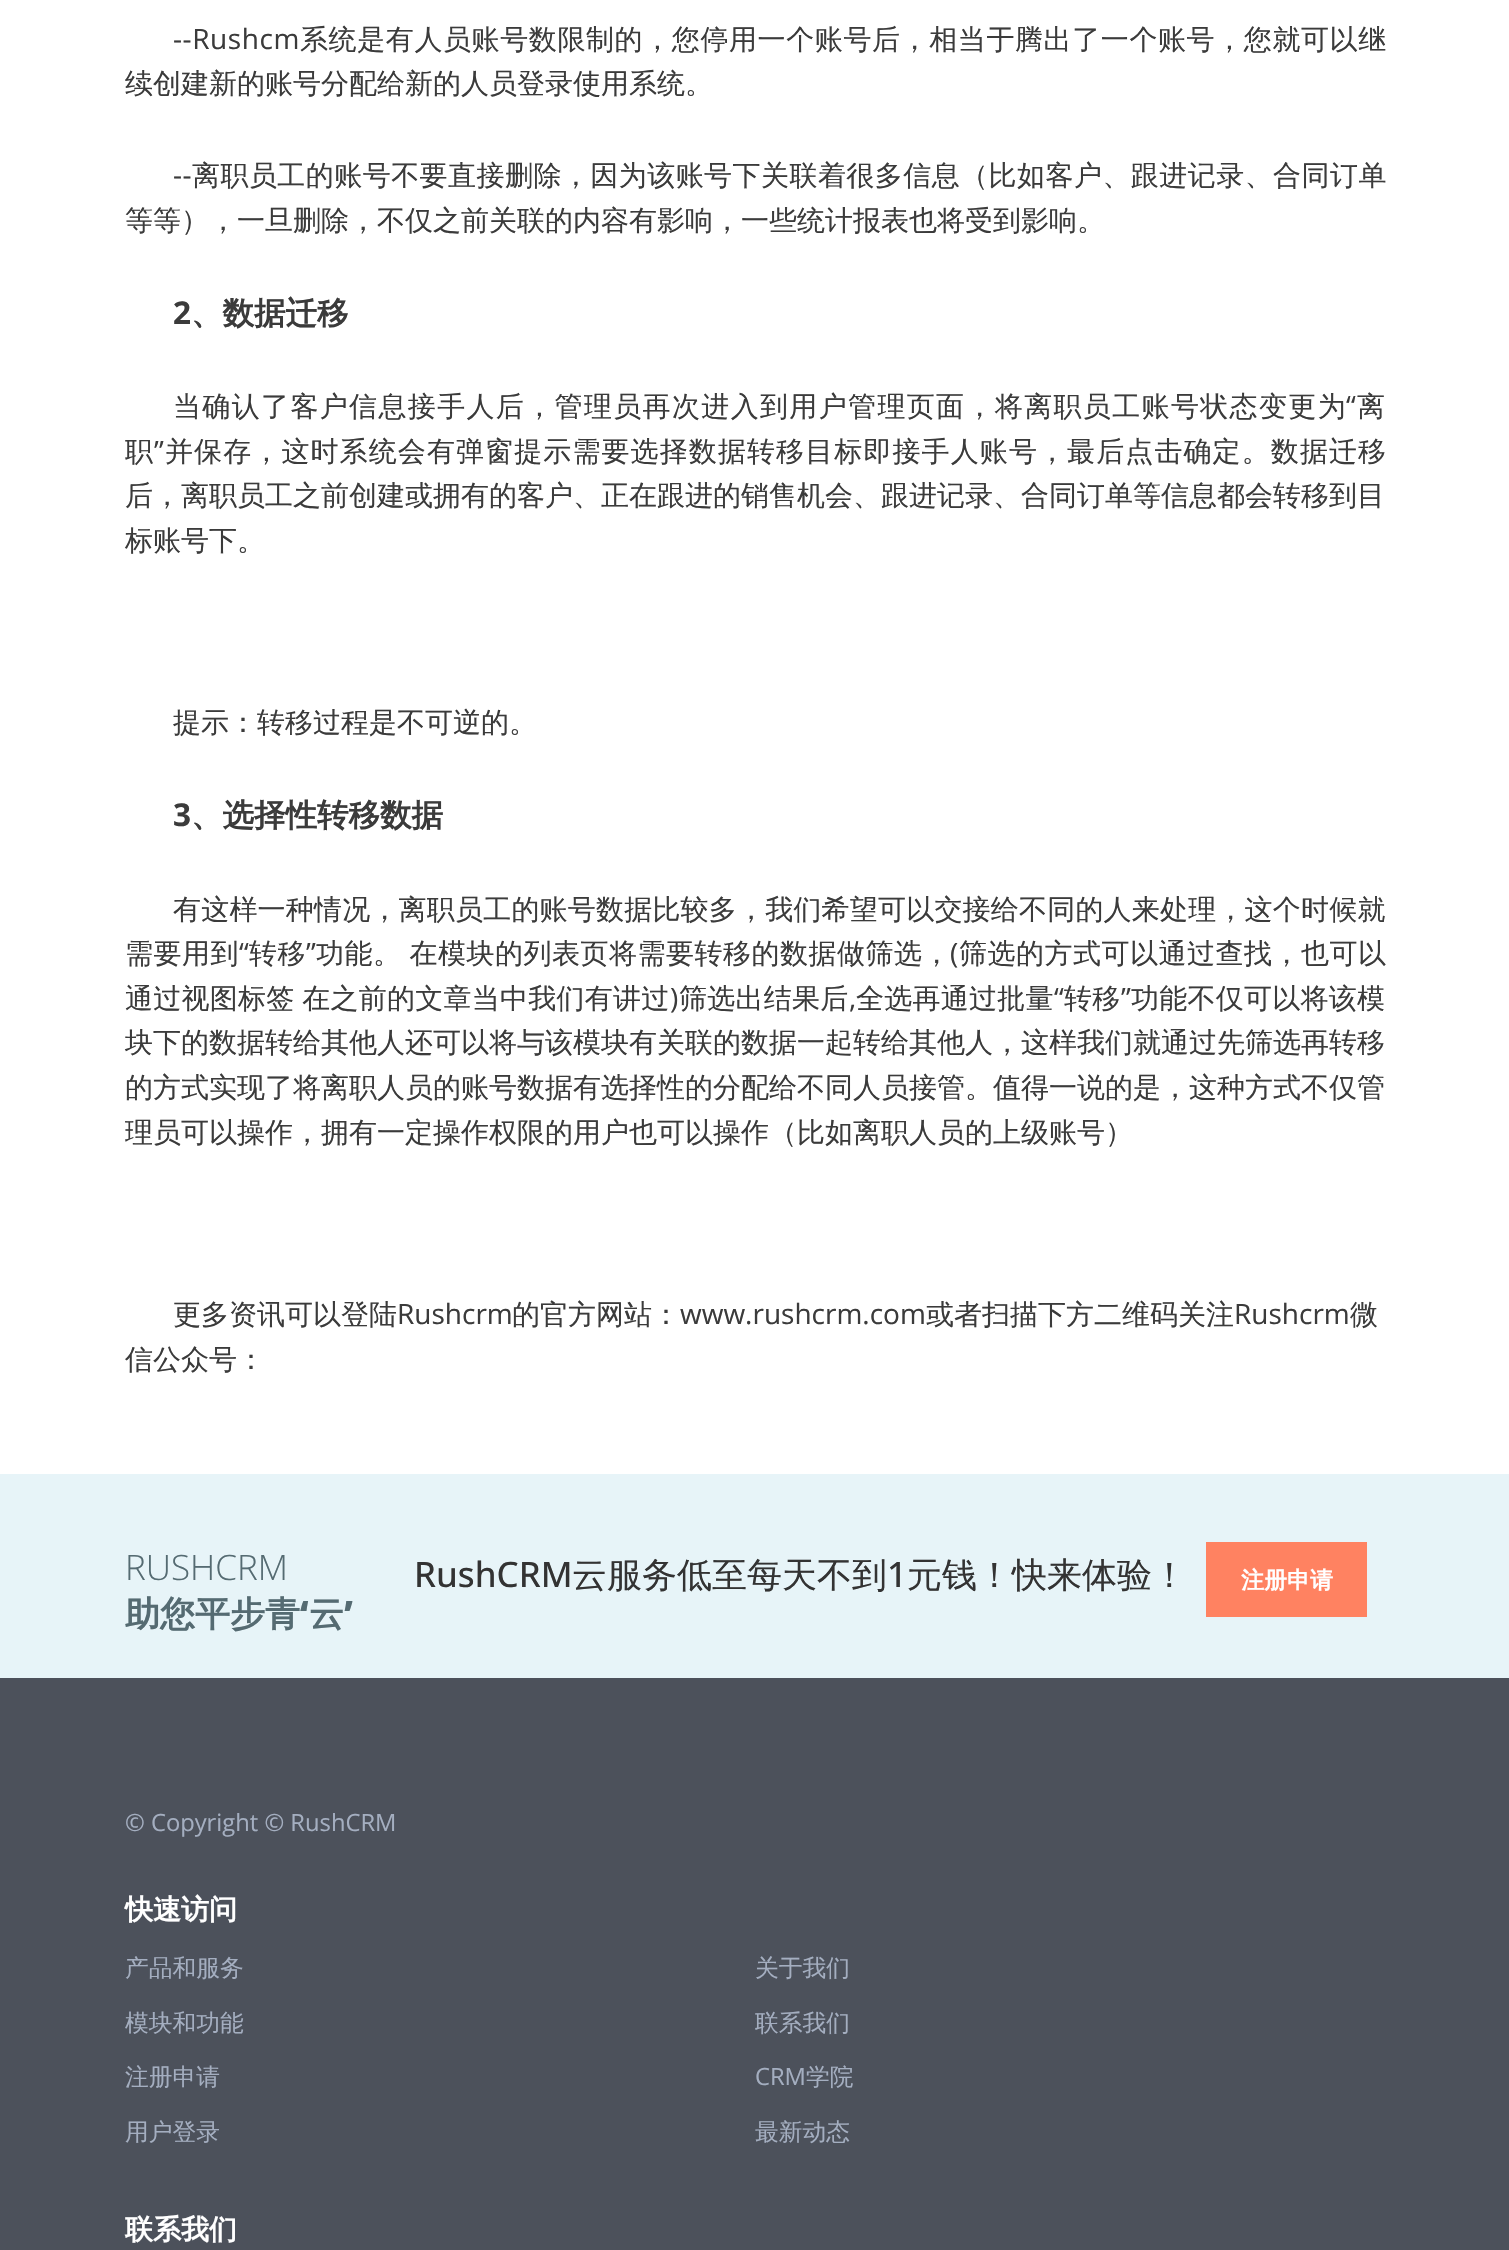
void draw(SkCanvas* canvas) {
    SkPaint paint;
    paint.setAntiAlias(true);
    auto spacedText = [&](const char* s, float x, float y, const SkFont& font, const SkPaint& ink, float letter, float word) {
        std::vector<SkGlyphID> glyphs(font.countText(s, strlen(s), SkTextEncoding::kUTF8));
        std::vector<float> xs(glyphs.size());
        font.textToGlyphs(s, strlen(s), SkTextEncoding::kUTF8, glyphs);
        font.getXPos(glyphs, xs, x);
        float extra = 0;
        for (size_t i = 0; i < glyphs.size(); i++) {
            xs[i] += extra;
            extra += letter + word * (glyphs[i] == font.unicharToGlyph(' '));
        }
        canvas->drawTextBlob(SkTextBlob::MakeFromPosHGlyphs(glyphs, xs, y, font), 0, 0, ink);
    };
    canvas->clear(0xFFFFFFFF);
    SkFont font1(fontMgr->matchFamilyStyle("Open Sans", SkFontStyle::Normal()), 28);
    font1.setSubpixel(true);
    paint.setColor(0xFF3B3B3B);
    spacedText("--Rushcm", 173, 49, font1, paint, 0.6f, 0);
    SkFont font2(fontMgr->matchFamilyStyle("WenQuanYi Zen Hei", SkFontStyle(500, SkFontStyle::kNormal_Width, SkFontStyle::kUpright_Slant)), 28);
    font2.setSubpixel(true);
    spacedText("系统是有人员账号数限制的，您停用一个账号后，相当于腾出了一个账号，您就可以继", 300, 49, font2, paint, 0.6f, 0);
    canvas->drawString("续创建新的账号分配给新的人员登录使用系统。", 125, 93, font2, paint);
    spacedText("--", 173, 185, font1, paint, 0.45f, 0);
    spacedText("离职员工的账号不要直接删除，因为该账号下关联着很多信息（比如客户、跟进记录、合同订单", 192, 185, font2, paint, 0.45f, 0);
    canvas->drawString("等等），一旦删除，不仅之前关联的内容有影响，一些统计报表也将受到影响。", 125, 230, font2, paint);
    SkFont font3(fontMgr->matchFamilyStyle("Open Sans", SkFontStyle::Bold()), 31.5f);
    font3.setSubpixel(true);
    canvas->drawString("2", 173, 324, font3, paint);
    SkFont font4(fontMgr->matchFamilyStyle("WenQuanYi Zen Hei", SkFontStyle::Bold()), 31.5f);
    font4.setSubpixel(true);
    canvas->drawString("、数据迁移", 191, 324, font4, paint);
    spacedText("当确认了客户信息接手人后，管理员再次进入到用户管理页面，将离职员工账号状态变更为", 173, 416, font2, paint, 1.35f, 0);
    spacedText("“", 1346, 416, font1, paint, 1.35f, 0);
    spacedText("离", 1357, 416, font2, paint, 1.35f, 0);
    spacedText("职", 125, 461, font2, paint, 1.1f, 0);
    spacedText("”", 154, 461, font1, paint, 1.1f, 0);
    spacedText("并保存，这时系统会有弹窗提示需要选择数据转移目标即接手人账号，最后点击确定。数据迁移", 165, 461, font2, paint, 1.1f, 0);
    canvas->drawString("后，离职员工之前创建或拥有的客户、正在跟进的销售机会、跟进记录、合同订单等信息都会转移到目", 125, 505, font2, paint);
    canvas->drawString("标账号下。", 125, 550, font2, paint);
    canvas->drawString("提示：转移过程是不可逆的。", 173, 732, font2, paint);
    canvas->drawString("3", 173, 826, font3, paint);
    canvas->drawString("、选择性转移数据", 191, 826, font4, paint);
    spacedText("有这样一种情况，离职员工的账号数据比较多，我们希望可以交接给不同的人来处理，这个时候就", 173, 919, font2, paint, 0.2f, 0);
    spacedText("需要用到", 125, 963, font2, paint, 0.5f, 0);
    spacedText("“", 239, 963, font1, paint, 0.5f, 0);
    spacedText("转移", 249, 963, font2, paint, 0.5f, 0);
    spacedText("”", 306, 963, font1, paint, 0.5f, 0);
    spacedText("功能。 在模块的列表页将需要转移的数据做筛选，", 316, 963, font2, paint, 0.5f, -1);
    spacedText("(", 950, 963, font1, paint, 0.5f, 0);
    spacedText("筛选的方式可以通过查找，也可以", 959, 963, font2, paint, 0.5f, 0);
    spacedText("通过视图标签 在之前的文章当中我们有讲过", 125, 1008, font2, paint, 0.25f, -1);
    spacedText(")", 670, 1008, font1, paint, 0.25f, 0);
    spacedText("筛选出结果后", 679, 1008, font2, paint, 0.25f, 0);
    spacedText("全选再通过批量", 856, 1008, font2, paint, 0.25f, 0);
    spacedText("“", 1054, 1008, font1, paint, 0.25f, 0);
    spacedText("转移", 1064, 1008, font2, paint, 0.25f, 0);
    spacedText("”", 1121, 1008, font1, paint, 0.25f, 0);
    spacedText("功能不仅可以将该模", 1131, 1008, font2, paint, 0.25f, 0);
    spacedText(",", 849, 1008, font1, paint, 0.25f, 0);
    canvas->drawString("块下的数据转给其他人还可以将与该模块有关联的数据一起转给其他人，这样我们就通过先筛选再转移", 125, 1052, font2, paint);
    canvas->drawString("的方式实现了将离职人员的账号数据有选择性的分配给不同人员接管。值得一说的是，这种方式不仅管", 125, 1097, font2, paint);
    canvas->drawString("理员可以操作，拥有一定操作权限的用户也可以操作（比如离职人员的上级账号）", 125, 1142, font2, paint);
    canvas->drawString("更多资讯可以登陆", 173, 1324, font2, paint);
    canvas->drawString("Rushcrm", 397, 1324, font1, paint);
    canvas->drawString("的官方网站：", 512, 1324, font2, paint);
    canvas->drawString("www.rushcrm.com", 680, 1324, font1, paint);
    canvas->drawString("或者扫描下方二维码关注", 926, 1324, font2, paint);
    canvas->drawString("Rushcrm", 1234, 1324, font1, paint);
    canvas->drawString("微", 1350, 1324, font2, paint);
    canvas->drawString("信公众号：", 125, 1369, font2, paint);
    paint.setColor(0xFFE7F4F8);
    canvas->drawRect(SkRect::MakeXYWH(0, 1474, 1509, 204), paint);
    SkFont font5(fontMgr->matchFamilyStyle("Open Sans", SkFontStyle(300, SkFontStyle::kNormal_Width, SkFontStyle::kUpright_Slant)), 35);
    font5.setSubpixel(true);
    paint.setColor(0xFF556B72);
    canvas->drawString("RUSHCRM", 125, 1580, font5, paint);
    SkFont font6(fontMgr->matchFamilyStyle("WenQuanYi Zen Hei", SkFontStyle::Bold()), 35);
    font6.setSubpixel(true);
    canvas->drawString("助您平步青", 125, 1626, font6, paint);
    SkFont font7(fontMgr->matchFamilyStyle("Open Sans", SkFontStyle(800, SkFontStyle::kNormal_Width, SkFontStyle::kUpright_Slant)), 35);
    font7.setSubpixel(true);
    canvas->drawString("‘", 300, 1626, font7, paint);
    canvas->drawString("云", 309, 1626, font6, paint);
    canvas->drawString("’", 344, 1626, font7, paint);
    SkFont font8(fontMgr->matchFamilyStyle("Open Sans", SkFontStyle(500, SkFontStyle::kNormal_Width, SkFontStyle::kUpright_Slant)), 35);
    font8.setSubpixel(true);
    paint.setColor(0xFF333333);
    canvas->drawString("RushCRM", 414, 1587, font8, paint);
    SkFont font9(fontMgr->matchFamilyStyle("WenQuanYi Zen Hei", SkFontStyle(500, SkFontStyle::kNormal_Width, SkFontStyle::kUpright_Slant)), 35);
    font9.setSubpixel(true);
    canvas->drawString("云服务低至每天不到", 572, 1587, font9, paint);
    canvas->drawString("1", 887, 1587, font8, paint);
    canvas->drawString("元钱！快来体验！", 907, 1587, font9, paint);
    paint.setColor(0xFFFF8261);
    canvas->drawRect(SkRect::MakeXYWH(1206, 1542, 161, 75), paint);
    SkFont font10(fontMgr->matchFamilyStyle("WenQuanYi Zen Hei", SkFontStyle::Bold()), 23);
    font10.setSubpixel(true);
    paint.setColor(0xFFFFFFFF);
    canvas->drawString("注册申请", 1241, 1588, font10, paint);
    paint.setColor(0xFF4C515B);
    canvas->drawRect(SkRect::MakeXYWH(0, 1678, 1509, 572), paint);
    SkFont font11(fontMgr->matchFamilyStyle("Open Sans", SkFontStyle::Normal()), 23.75f);
    font11.setSubpixel(true);
    paint.setColor(0xFFA4AEC0);
    canvas->drawString("© Copyright © RushCRM", 125, 1831, font11, paint);
    SkFont font12(fontMgr->matchFamilyStyle("WenQuanYi Zen Hei", SkFontStyle::Bold()), 28);
    font12.setSubpixel(true);
    paint.setColor(0xFFFFFFFF);
    canvas->drawString("快速访问", 125, 1919, font12, paint);
    SkFont font13(fontMgr->matchFamilyStyle("WenQuanYi Zen Hei", SkFontStyle(500, SkFontStyle::kNormal_Width, SkFontStyle::kUpright_Slant)), 23.75f);
    font13.setSubpixel(true);
    paint.setColor(0xFFA4AEC0);
    canvas->drawString("产品和服务", 125, 1976, font13, paint);
    canvas->drawString("模块和功能", 125, 2031, font13, paint);
    canvas->drawString("注册申请", 125, 2085, font13, paint);
    canvas->drawString("用户登录", 125, 2140, font13, paint);
    canvas->drawString("关于我们", 755, 1976, font13, paint);
    canvas->drawString("联系我们", 755, 2031, font13, paint);
    canvas->drawString("CRM", 755, 2085, font11, paint);
    canvas->drawString("学院", 806, 2085, font13, paint);
    canvas->drawString("最新动态", 755, 2140, font13, paint);
    paint.setColor(0xFFFFFFFF);
    canvas->drawString("联系我们", 125, 2239, font12, paint);
}
